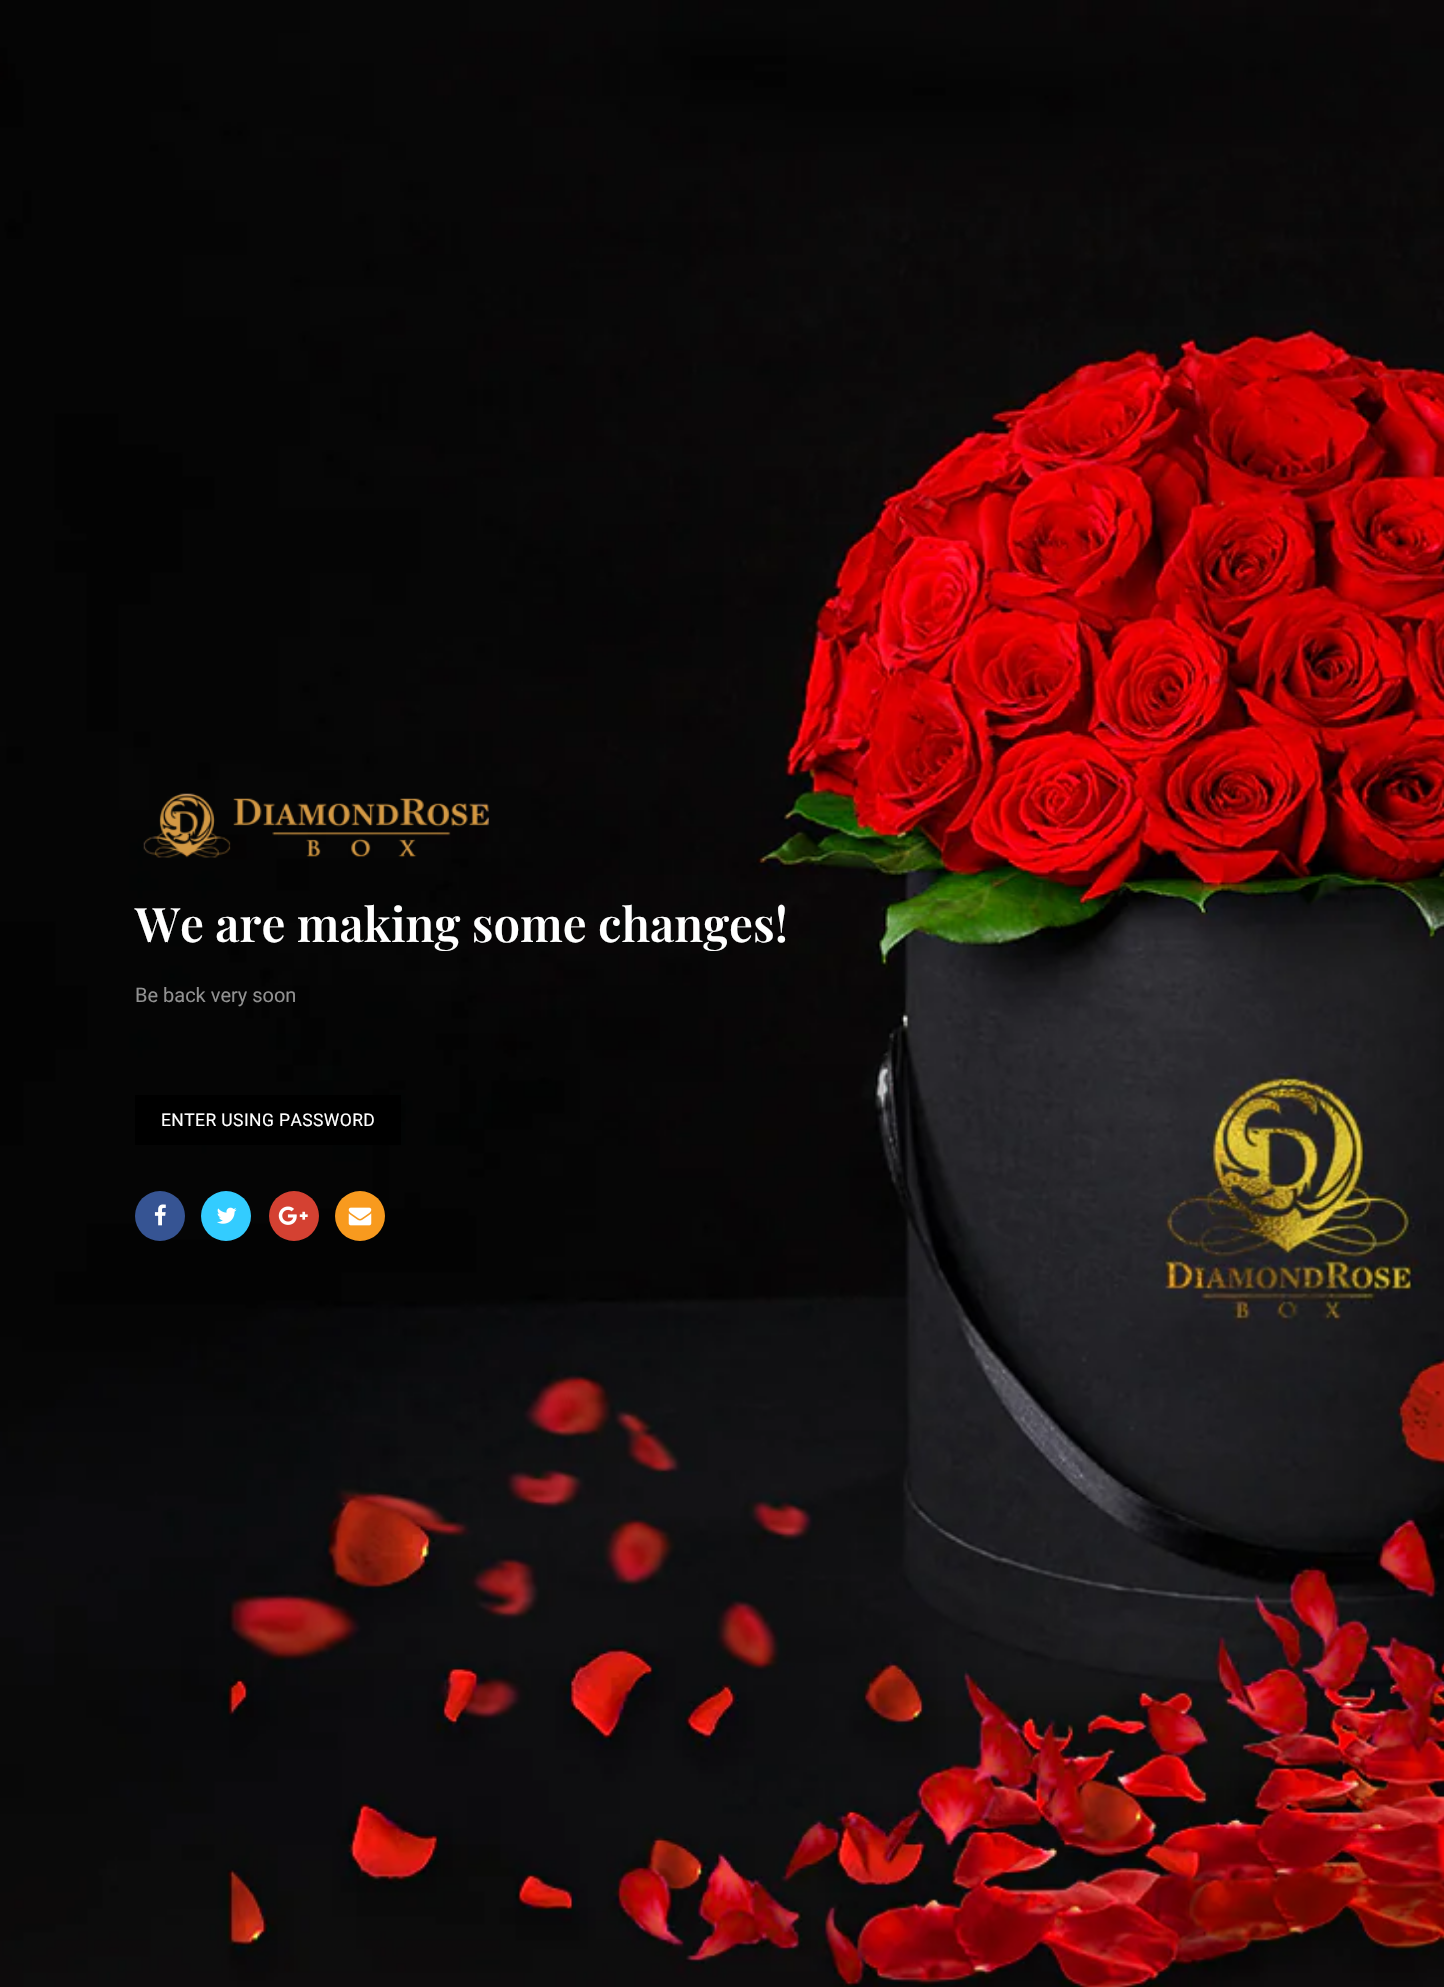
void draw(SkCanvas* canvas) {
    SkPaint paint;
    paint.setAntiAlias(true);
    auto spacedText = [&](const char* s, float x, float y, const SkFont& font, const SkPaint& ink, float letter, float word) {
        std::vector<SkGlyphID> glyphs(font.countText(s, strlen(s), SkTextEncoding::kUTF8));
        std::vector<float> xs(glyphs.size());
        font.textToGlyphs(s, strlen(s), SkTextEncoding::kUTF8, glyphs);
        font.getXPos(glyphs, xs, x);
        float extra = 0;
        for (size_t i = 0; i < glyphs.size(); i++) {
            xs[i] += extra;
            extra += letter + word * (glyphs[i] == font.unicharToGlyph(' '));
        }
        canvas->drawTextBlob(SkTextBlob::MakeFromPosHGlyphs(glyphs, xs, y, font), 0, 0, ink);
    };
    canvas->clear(0xFFFFFFFF);
    canvas->drawImageRect(SkImages::DeferredFromEncodedData(SkData::MakeFromFileName("img1.png")), SkRect::MakeXYWH(0, 0, 1444, 1987), SkSamplingOptions());
    canvas->drawImageRect(SkImages::DeferredFromEncodedData(SkData::MakeFromFileName("img2.png")), SkRect::MakeXYWH(143, 793, 346, 65), SkSamplingOptions());
    SkFont font1(fontMgr->matchFamilyStyle("Playfair Display", SkFontStyle(600, SkFontStyle::kNormal_Width, SkFontStyle::kUpright_Slant)), 47.5f);
    font1.setSubpixel(true);
    paint.setColor(0xFFFFFFFF);
    canvas->drawString("We are making some changes!", 135, 942, font1, paint);
    SkFont font2(fontMgr->matchFamilyStyle("Roboto", SkFontStyle::Normal()), 20);
    font2.setSubpixel(true);
    paint.setColor(0xFF919191);
    canvas->drawString("Be back very soon", 135, 1002, font2, paint);
    paint.setColor(0xFF000000);
    canvas->drawRect(SkRect::MakeXYWH(135, 1095, 266, 50), paint);
    SkFont font3(fontMgr->matchFamilyStyle("Roboto", SkFontStyle::Normal()), 17.5f);
    font3.setSubpixel(true);
    paint.setColor(0xFFFFFFFF);
    spacedText("ENTER USING PASSWORD", 161, 1126, font3, paint, 0.4f, 0);
    paint.setColor(0xFF365493);
    canvas->drawCircle(160, 1216, 25, paint);
    canvas->drawImageRect(SkImages::DeferredFromEncodedData(SkData::MakeFromFileName("img3.png")), SkRect::MakeXYWH(154, 1204, 12, 22), SkSamplingOptions());
    paint.setColor(0xFF33CCFF);
    canvas->drawCircle(226, 1216, 25, paint);
    canvas->drawImageRect(SkImages::DeferredFromEncodedData(SkData::MakeFromFileName("img4.png")), SkRect::MakeXYWH(217, 1207, 20, 17), SkSamplingOptions());
    paint.setColor(0xFFD44132);
    canvas->drawCircle(294, 1216, 25, paint);
    canvas->drawImageRect(SkImages::DeferredFromEncodedData(SkData::MakeFromFileName("img5.png")), SkRect::MakeXYWH(278, 1206, 30, 19), SkSamplingOptions());
    paint.setColor(0xFFF89A1E);
    canvas->drawCircle(360, 1216, 25, paint);
    canvas->drawImageRect(SkImages::DeferredFromEncodedData(SkData::MakeFromFileName("img6.png")), SkRect::MakeXYWH(348, 1207, 24, 19), SkSamplingOptions());
}
